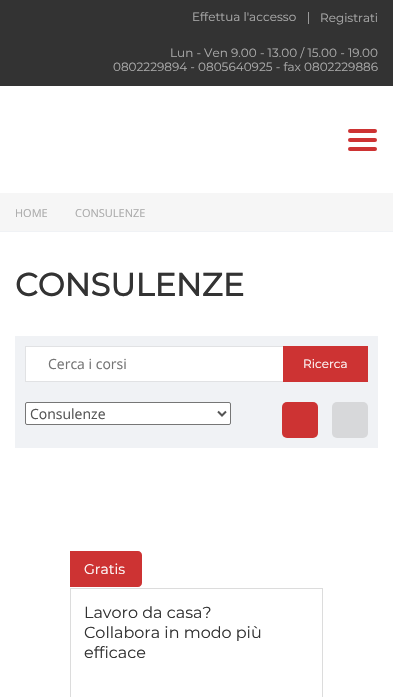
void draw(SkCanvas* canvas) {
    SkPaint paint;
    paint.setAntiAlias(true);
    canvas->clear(0xFFFFFFFF);
    paint.setColor(0xFF333333);
    canvas->drawRect(SkRect::MakeXYWH(0, 0, 393, 86), paint);
    SkFont font1(fontMgr->matchFamilyStyle("Montserrat", SkFontStyle(100, SkFontStyle::kNormal_Width, SkFontStyle::kUpright_Slant)), 12);
    font1.setSubpixel(true);
    paint.setColor(0xFFAAAAAA);
    canvas->drawString("Effettua l'accesso", 192, 21, font1, paint);
    paint.setColor(0xFF9A9A9A);
    canvas->drawRect(SkRect::MakeXYWH(308, 12, 1, 12), paint);
    paint.setColor(0xFFAAAAAA);
    canvas->drawString("Registrati", 320, 22, font1, paint);
    canvas->drawString("Lun - Ven 9.00 - 13.00 / 15.00 - 19.00", 170, 57, font1, paint);
    canvas->drawString("0802229894 - 0805640925 - fax 0802229886", 113, 71, font1, paint);
    paint.setColor(0xFFCD3333);
    canvas->drawRoundRect(SkRect::MakeXYWH(348, 129, 29, 4), 2, 2, paint);
    canvas->drawRoundRect(SkRect::MakeXYWH(348, 138, 29, 4), 2, 2, paint);
    canvas->drawRoundRect(SkRect::MakeXYWH(348, 147, 29, 4), 2, 2, paint);
    paint.setColor(0xFFF6F6F6);
    canvas->drawRect(SkRect::MakeXYWH(0, 193, 393, 38), paint);
    paint.setColor(0xFFF0F2F5);
    canvas->drawRect(SkRect::MakeXYWH(0, 231, 393, 1), paint);
    SkFont font2(fontMgr->matchFamilyStyle("Open Sans", SkFontStyle::Normal()), 11);
    font2.setSubpixel(true);
    paint.setColor(0xFFAAAAAA);
    canvas->drawString("HOME", 15, 217, font2, paint);
    canvas->drawString("CONSULENZE", 75, 217, font2, paint);
    SkFont font3(fontMgr->matchFamilyStyle("Montserrat", SkFontStyle::Bold()), 32);
    font3.setSubpixel(true);
    paint.setColor(0xFF333333);
    canvas->drawString("CONSULENZE", 15, 296, font3, paint);
    paint.setColor(0xFFF0F2F5);
    canvas->drawRect(SkRect::MakeXYWH(15, 336, 363, 112), paint);
    paint.setColor(0xFFFFFFFF);
    canvas->drawRect(SkRect::MakeXYWH(26, 347, 257, 34), paint);
    paint.setStyle(SkPaint::kStroke_Style);
    paint.setStrokeWidth(1);
    paint.setColor(0xFFE1E2E4);
    canvas->drawRect(SkRect::MakeXYWH(25.5f, 346.5f, 342, 35), paint);
    SkFont font4(fontMgr->matchFamilyStyle("Open Sans", SkFontStyle::Normal()), 14);
    font4.setSubpixel(true);
    paint.setStyle(SkPaint::kFill_Style);
    paint.setColor(0xFF757575);
    canvas->drawString("Cerca i corsi", 48, 369, font4, paint);
    paint.setColor(0xFFCD3333);
    canvas->drawRect(SkRect::MakeXYWH(283, 346, 85, 36), paint);
    paint.setColor(0xFFFFFFFF);
    canvas->drawString("Ricerca", 303, 368, font1, paint);
    canvas->drawRoundRect(SkRect::MakeXYWH(25.5f, 402.5f, 205, 22), 1.5f, 1.5f, paint);
    paint.setStyle(SkPaint::kStroke_Style);
    paint.setColor(0xFF767676);
    canvas->drawRoundRect(SkRect::MakeXYWH(25.5f, 402.5f, 205, 22), 1.5f, 1.5f, paint);
    paint.setStrokeWidth(2);
    paint.setColor(0xFF555555);
    canvas->drawPath(SkPathBuilder().moveTo(218, 411.5f).lineTo(222, 415.5f).lineTo(226, 411.5f).detach(), paint);
    paint.setStyle(SkPaint::kFill_Style);
    canvas->drawString("Consulenze", 30, 419, font4, paint);
    paint.setColor(0xFFCD3333);
    canvas->drawRoundRect(SkRect::MakeXYWH(282, 402, 36, 36), 5, 5, paint);
    paint.setColor(0xFFD7D8DA);
    canvas->drawRoundRect(SkRect::MakeXYWH(332, 402, 36, 36), 5, 5, paint);
    paint.setColor(0xFFCD3333);
    canvas->drawPath(SkPathBuilder().moveTo(70, 551).lineTo(138, 551).cubicTo(140, 551, 142, 553, 142, 555).lineTo(142, 583).cubicTo(142, 585, 140, 587, 138, 587).lineTo(70, 587).close().detach(), paint);
    SkFont font5(fontMgr->matchFamilyStyle("Montserrat", SkFontStyle(100, SkFontStyle::kNormal_Width, SkFontStyle::kUpright_Slant)), 14);
    font5.setSubpixel(true);
    paint.setColor(0xFFFFFFFF);
    canvas->drawString("Gratis", 84, 574, font5, paint);
    paint.setStyle(SkPaint::kStroke_Style);
    paint.setStrokeWidth(1);
    paint.setColor(0xFFDCDCDC);
    canvas->drawRect(SkRect::MakeXYWH(70.5f, 588.5f, 252, 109), paint);
    SkFont font6(fontMgr->matchFamilyStyle("Montserrat", SkFontStyle(100, SkFontStyle::kNormal_Width, SkFontStyle::kUpright_Slant)), 16);
    font6.setSubpixel(true);
    paint.setStyle(SkPaint::kFill_Style);
    paint.setColor(0xFF333333);
    canvas->drawString("Lavoro da casa?", 84, 618, font6, paint);
    canvas->drawString("Collabora in modo più", 84, 638, font6, paint);
    canvas->drawString("efficace", 84, 658, font6, paint);
}
